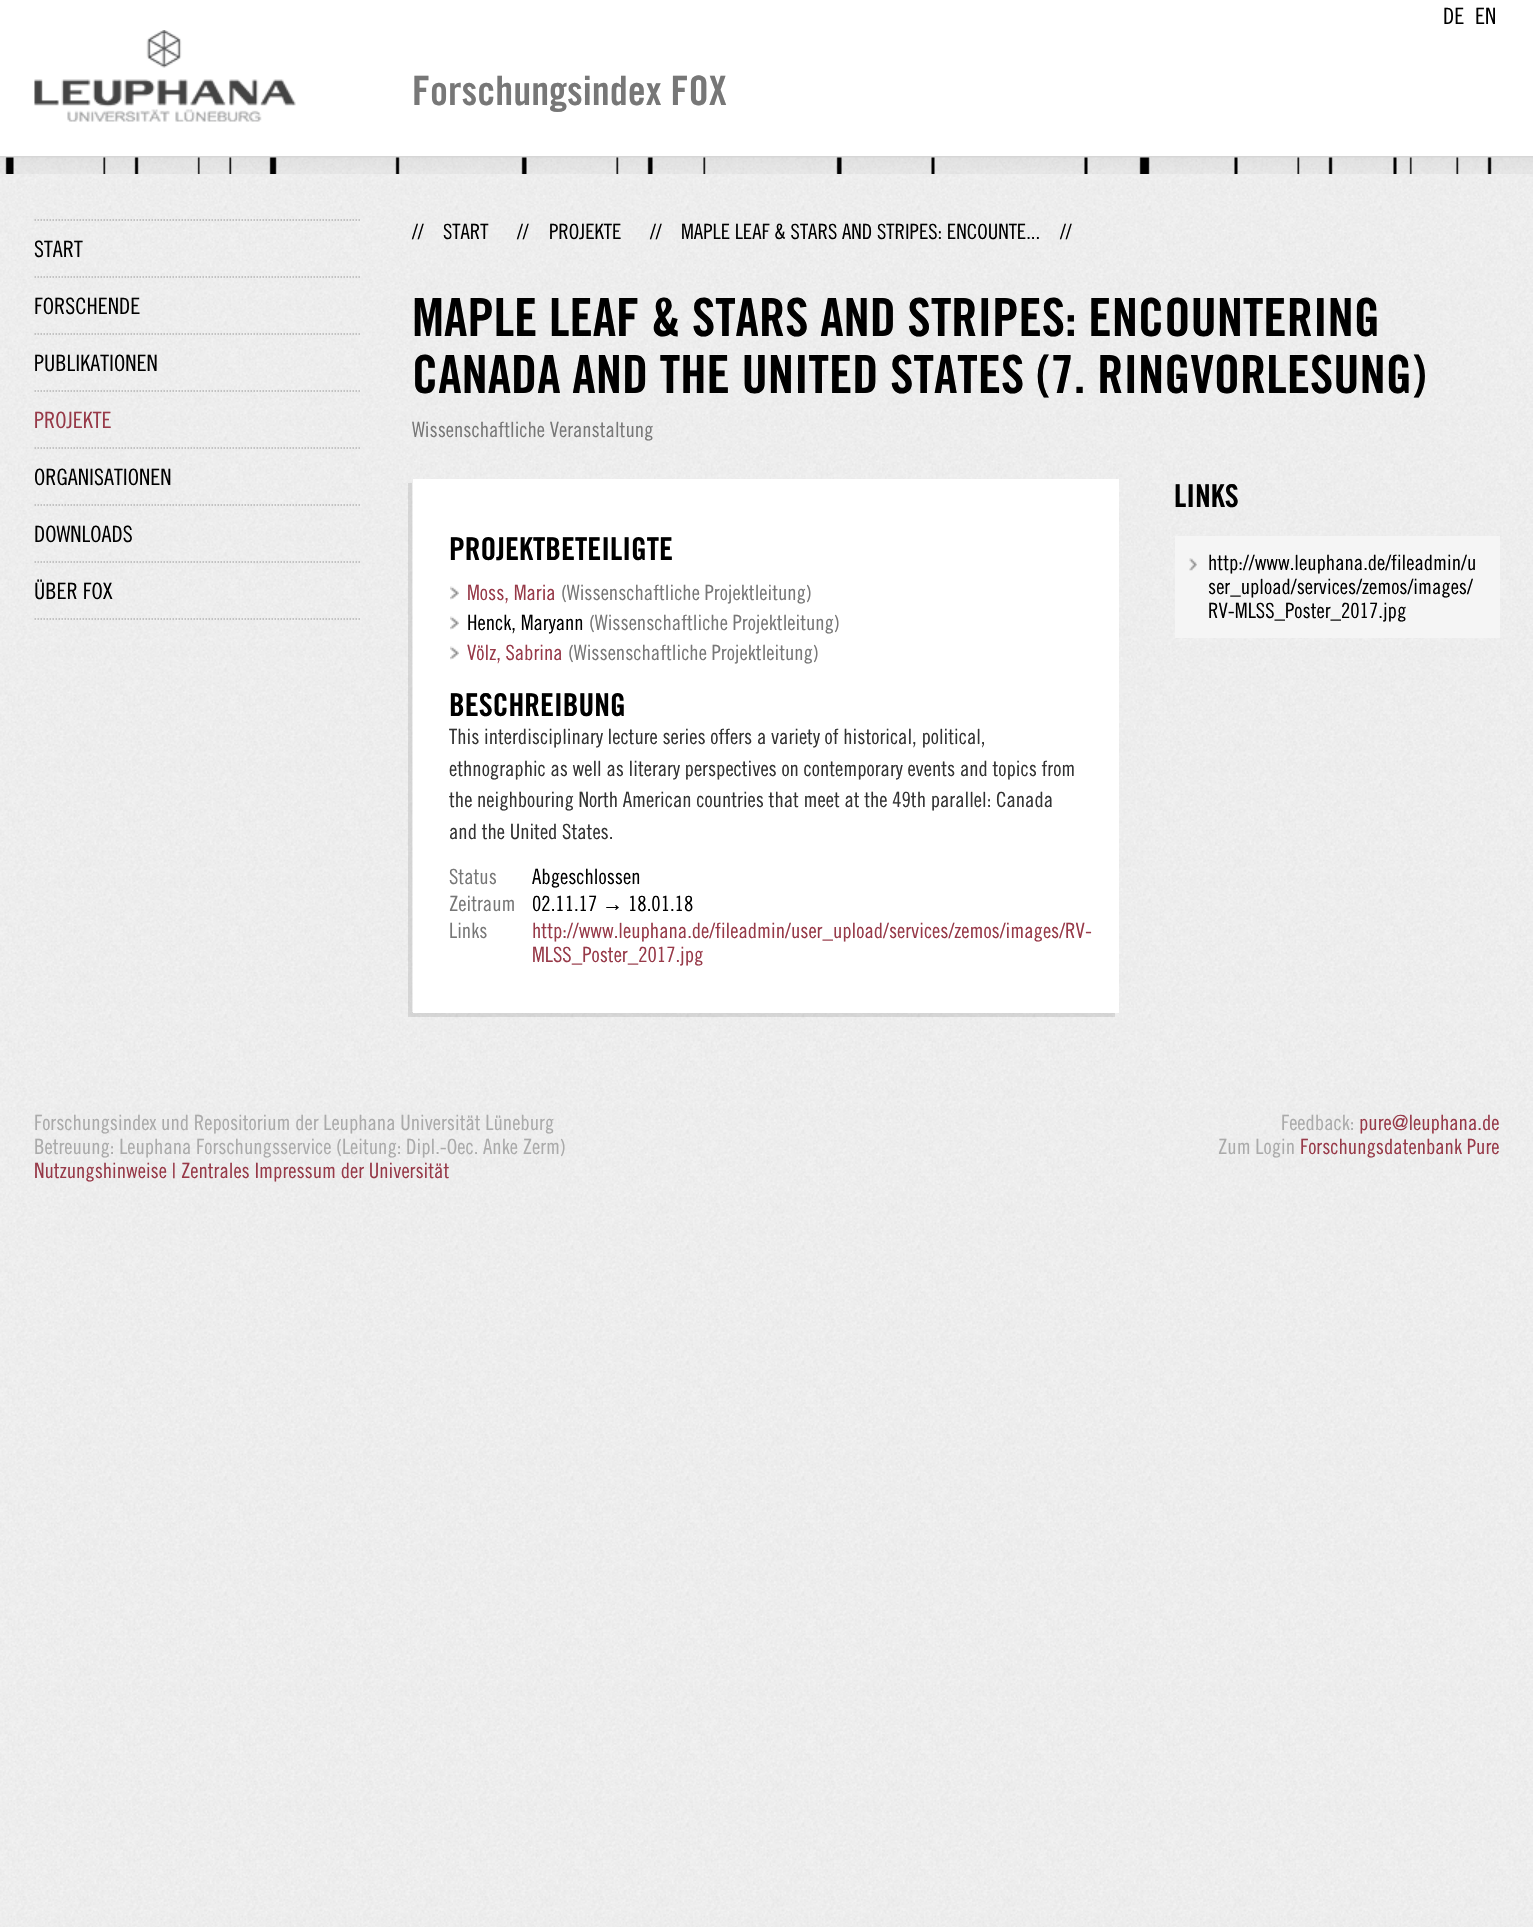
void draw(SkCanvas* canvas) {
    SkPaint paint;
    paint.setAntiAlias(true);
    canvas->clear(0xFFFFFFFF);
    canvas->drawImageRect(SkImages::DeferredFromEncodedData(SkData::MakeFromFileName("img1.png")), SkRect::MakeXYWH(0, 174, 1533, 1753), SkSamplingOptions());
    paint.setColor(0xFFD6D6D6);
    canvas->drawRect(SkRect::MakeXYWH(0, 156, 1533, 2), paint);
    SkFont font1(fontMgr->matchFamilyStyle("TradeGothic", SkFontStyle::Normal()), 22.5f);
    font1.setSubpixel(true);
    paint.setColor(0xFF000000);
    canvas->drawString("DE", 1443, 24, font1, paint);
    canvas->drawString("EN", 1475, 24, font1, paint);
    canvas->drawImageRect(SkImages::DeferredFromEncodedData(SkData::MakeFromFileName("img2.png")), SkRect::MakeXYWH(34, 30, 262, 92), SkSamplingOptions());
    SkFont font2(fontMgr->matchFamilyStyle("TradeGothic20", SkFontStyle::Bold()), 40.5f);
    font2.setSubpixel(true);
    paint.setColor(0xFF777777);
    canvas->drawString("Forschungsindex FOX", 412, 105, font2, paint);
    canvas->drawImageRect(SkImages::DeferredFromEncodedData(SkData::MakeFromFileName("img3.png")), SkRect::MakeXYWH(0, 157, 1533, 17), SkSamplingOptions());
    paint.setStyle(SkPaint::kStroke_Style);
    paint.setStrokeWidth(1.5f);
    paint.setColor(0xFFB5B5B5);
    paint.setPathEffect(SkDashPathEffect::Make({{1.5f, 1.5f}}, 0));
    canvas->drawPath(SkPathBuilder().moveTo(34.5f, 619).lineTo(360, 619).detach(), paint);
    paint.setPathEffect(nullptr);
    paint.setPathEffect(SkDashPathEffect::Make({{1.5f, 1.5f}}, 0));
    canvas->drawPath(SkPathBuilder().moveTo(34.5f, 220).lineTo(360, 220).detach(), paint);
    paint.setPathEffect(nullptr);
    paint.setStyle(SkPaint::kFill_Style);
    paint.setColor(0xFF000000);
    canvas->drawString("START", 34, 257, font1, paint);
    paint.setStyle(SkPaint::kStroke_Style);
    paint.setColor(0xFFB5B5B5);
    paint.setPathEffect(SkDashPathEffect::Make({{1.5f, 1.5f}}, 0));
    canvas->drawPath(SkPathBuilder().moveTo(34.5f, 277).lineTo(360, 277).detach(), paint);
    paint.setPathEffect(nullptr);
    paint.setStyle(SkPaint::kFill_Style);
    paint.setColor(0xFF000000);
    canvas->drawString("FORSCHENDE", 34, 314, font1, paint);
    paint.setStyle(SkPaint::kStroke_Style);
    paint.setColor(0xFFB5B5B5);
    paint.setPathEffect(SkDashPathEffect::Make({{1.5f, 1.5f}}, 0));
    canvas->drawPath(SkPathBuilder().moveTo(34.5f, 334).lineTo(360, 334).detach(), paint);
    paint.setPathEffect(nullptr);
    paint.setStyle(SkPaint::kFill_Style);
    paint.setColor(0xFF000000);
    canvas->drawString("PUBLIKATIONEN", 34, 371, font1, paint);
    paint.setStyle(SkPaint::kStroke_Style);
    paint.setColor(0xFFB5B5B5);
    paint.setPathEffect(SkDashPathEffect::Make({{1.5f, 1.5f}}, 0));
    canvas->drawPath(SkPathBuilder().moveTo(34.5f, 391).lineTo(360, 391).detach(), paint);
    paint.setPathEffect(nullptr);
    paint.setStyle(SkPaint::kFill_Style);
    paint.setColor(0xFF973948);
    canvas->drawString("PROJEKTE", 34, 428, font1, paint);
    paint.setStyle(SkPaint::kStroke_Style);
    paint.setColor(0xFFB5B5B5);
    paint.setPathEffect(SkDashPathEffect::Make({{1.5f, 1.5f}}, 0));
    canvas->drawPath(SkPathBuilder().moveTo(34.5f, 448).lineTo(360, 448).detach(), paint);
    paint.setPathEffect(nullptr);
    paint.setStyle(SkPaint::kFill_Style);
    paint.setColor(0xFF000000);
    canvas->drawString("ORGANISATIONEN", 34, 485, font1, paint);
    paint.setStyle(SkPaint::kStroke_Style);
    paint.setColor(0xFFB5B5B5);
    paint.setPathEffect(SkDashPathEffect::Make({{1.5f, 1.5f}}, 0));
    canvas->drawPath(SkPathBuilder().moveTo(34.5f, 505).lineTo(360, 505).detach(), paint);
    paint.setPathEffect(nullptr);
    paint.setStyle(SkPaint::kFill_Style);
    paint.setColor(0xFF000000);
    canvas->drawString("DOWNLOADS", 34, 542, font1, paint);
    paint.setStyle(SkPaint::kStroke_Style);
    paint.setColor(0xFFB5B5B5);
    paint.setPathEffect(SkDashPathEffect::Make({{1.5f, 1.5f}}, 0));
    canvas->drawPath(SkPathBuilder().moveTo(34.5f, 562).lineTo(360, 562).detach(), paint);
    paint.setPathEffect(nullptr);
    paint.setStyle(SkPaint::kFill_Style);
    paint.setColor(0xFF000000);
    canvas->drawString("ÜBER FOX", 34, 599, font1, paint);
    SkFont font3(fontMgr->matchFamilyStyle("TradeGothic", SkFontStyle::Normal()), 21);
    font3.setSubpixel(true);
    canvas->drawString("//", 412, 239, font3, paint);
    canvas->drawString("START", 443, 239, font3, paint);
    canvas->drawString("//", 517, 239, font3, paint);
    canvas->drawString("PROJEKTE", 549, 239, font3, paint);
    canvas->drawString("//", 650, 239, font3, paint);
    canvas->drawString("MAPLE LEAF & STARS AND STRIPES: ENCOUNTE...", 681, 239, font3, paint);
    canvas->drawString("//", 1060, 239, font3, paint);
    SkFont font4(fontMgr->matchFamilyStyle("TradeGothic20", SkFontStyle::Bold()), 52.5f);
    font4.setSubpixel(true);
    canvas->drawString("MAPLE LEAF & STARS AND STRIPES: ENCOUNTERING", 412, 336, font4, paint);
    canvas->drawString("CANADA AND THE UNITED STATES (7. RINGVORLESUNG)", 412, 393, font4, paint);
    paint.setColor(0xFF777777);
    canvas->drawString("Wissenschaftliche Veranstaltung", 412, 437, font3, paint);
    paint.setColor(0x1A000000);
    canvas->drawPath(SkPathBuilder().moveTo(408, 483).lineTo(408, 1017).lineTo(1115, 1017).lineTo(1115, 1012).lineTo(412, 1012).lineTo(412, 483).close().detach(), paint);
    paint.setColor(0xFFFFFFFF);
    canvas->drawRect(SkRect::MakeXYWH(413, 479, 706, 534), paint);
    SkFont font5(fontMgr->matchFamilyStyle("TradeGothic20", SkFontStyle::Bold()), 31.5f);
    font5.setSubpixel(true);
    paint.setColor(0xFF000000);
    canvas->drawString("PROJEKTBETEILIGTE", 449, 560, font5, paint);
    canvas->drawImageRect(SkImages::DeferredFromEncodedData(SkData::MakeFromFileName("img4.png")), SkRect::MakeXYWH(450, 586, 9, 14), SkSamplingOptions());
    paint.setColor(0xFF973948);
    canvas->drawString("Moss, Maria", 467, 600, font3, paint);
    paint.setColor(0xFF777777);
    canvas->drawString("(Wissenschaftliche Projektleitung)", 561, 600, font3, paint);
    canvas->drawImageRect(SkImages::DeferredFromEncodedData(SkData::MakeFromFileName("img4.png")), SkRect::MakeXYWH(450, 616, 9, 14), SkSamplingOptions());
    paint.setColor(0xFF000000);
    canvas->drawString("Henck, Maryann", 467, 630, font3, paint);
    paint.setColor(0xFF777777);
    canvas->drawString("(Wissenschaftliche Projektleitung)", 589, 630, font3, paint);
    canvas->drawImageRect(SkImages::DeferredFromEncodedData(SkData::MakeFromFileName("img4.png")), SkRect::MakeXYWH(450, 646, 9, 14), SkSamplingOptions());
    paint.setColor(0xFF973948);
    canvas->drawString("Völz, Sabrina", 467, 660, font3, paint);
    paint.setColor(0xFF777777);
    canvas->drawString("(Wissenschaftliche Projektleitung)", 568, 660, font3, paint);
    paint.setColor(0xFF000000);
    canvas->drawString("BESCHREIBUNG", 449, 716, font5, paint);
    paint.setColor(0xFF333333);
    canvas->drawString("This interdisciplinary lecture series offers a variety of historical, political,", 449, 744, font3, paint);
    canvas->drawString("ethnographic as well as literary perspectives on contemporary events and topics from", 449, 776, font3, paint);
    canvas->drawString("the neighbouring North American countries that meet at the 49th parallel: Canada", 449, 807, font3, paint);
    canvas->drawString("and the United States.", 449, 839, font3, paint);
    paint.setColor(0xFF777777);
    canvas->drawString("Status", 449, 884, font3, paint);
    paint.setColor(0xFF000000);
    canvas->drawString("Abgeschlossen", 532, 884, font3, paint);
    paint.setColor(0xFF777777);
    canvas->drawString("Zeitraum", 449, 911, font3, paint);
    paint.setColor(0xFF000000);
    canvas->drawString("02.11.17", 532, 911, font3, paint);
    SkFont font6(fontMgr->matchFamilyStyle("Liberation Sans", SkFontStyle::Normal()), 21);
    font6.setSubpixel(true);
    canvas->drawString("→", 602, 911, font6, paint);
    canvas->drawString("18.01.18", 628, 911, font3, paint);
    paint.setColor(0xFF777777);
    canvas->drawString("Links", 449, 938, font3, paint);
    paint.setColor(0xFF973948);
    canvas->drawString("http://www.leuphana.de/fileadmin/user_upload/services/zemos/images/RV-", 532, 938, font3, paint);
    canvas->drawString("MLSS_Poster_2017.jpg", 532, 962, font3, paint);
    paint.setColor(0xFF000000);
    canvas->drawString("LINKS", 1174, 507, font5, paint);
    paint.setColor(0xFFF5F5F5);
    canvas->drawRect(SkRect::MakeXYWH(1175, 536, 325, 102), paint);
    canvas->drawImageRect(SkImages::DeferredFromEncodedData(SkData::MakeFromFileName("img5.png")), SkRect::MakeXYWH(1189, 558, 8, 13), SkSamplingOptions());
    paint.setColor(0xFF000000);
    canvas->drawString("http://www.leuphana.de/fileadmin/u", 1208, 570, font3, paint);
    canvas->drawString("ser_upload/services/zemos/images/", 1208, 594, font3, paint);
    canvas->drawString("RV-MLSS_Poster_2017.jpg", 1208, 618, font3, paint);
    paint.setColor(0xFFAAAAAA);
    canvas->drawString("Forschungsindex und Repositorium der Leuphana Universität Lüneburg", 34, 1130, font3, paint);
    canvas->drawString("Betreuung: Leuphana Forschungsservice (Leitung: Dipl.-Oec. Anke Zerm)", 34, 1154, font3, paint);
    paint.setColor(0xFF973948);
    canvas->drawString("Nutzungshinweise | Zentrales Impressum der Universität", 34, 1178, font3, paint);
    paint.setColor(0xFFAAAAAA);
    canvas->drawString("Feedback:", 1281, 1130, font3, paint);
    paint.setColor(0xFF973948);
    canvas->drawString("pure@leuphana.de", 1359, 1130, font3, paint);
    paint.setColor(0xFFAAAAAA);
    canvas->drawString("Zum Login", 1218, 1154, font3, paint);
    paint.setColor(0xFF973948);
    canvas->drawString("Forschungsdatenbank Pure", 1300, 1154, font3, paint);
}
